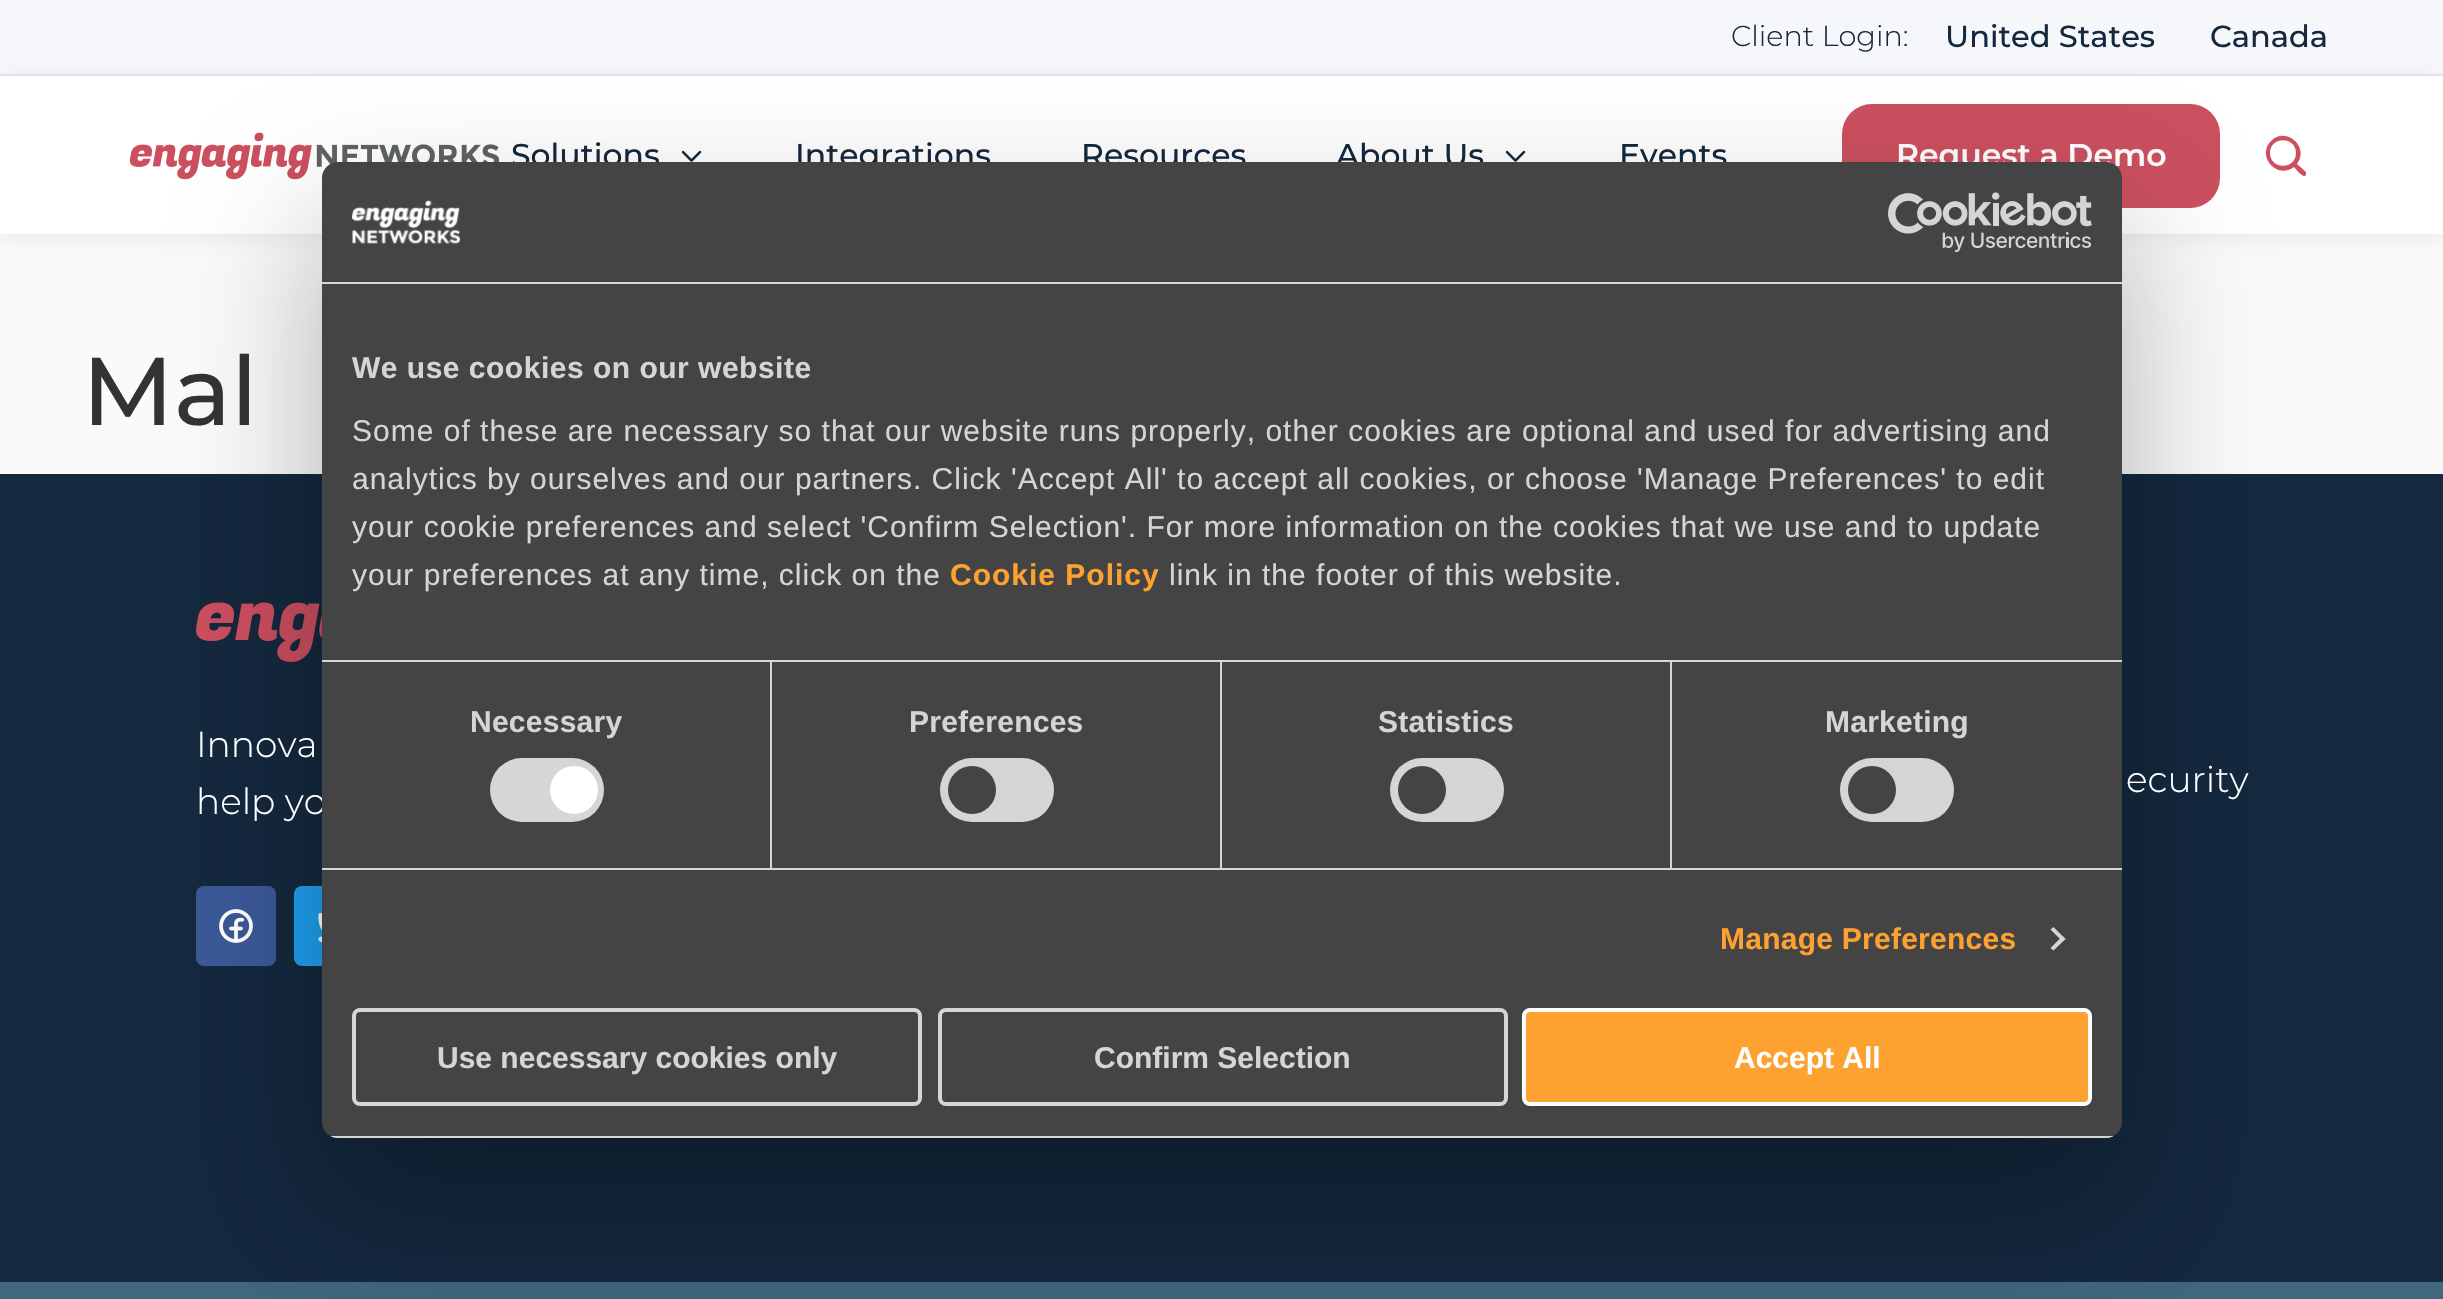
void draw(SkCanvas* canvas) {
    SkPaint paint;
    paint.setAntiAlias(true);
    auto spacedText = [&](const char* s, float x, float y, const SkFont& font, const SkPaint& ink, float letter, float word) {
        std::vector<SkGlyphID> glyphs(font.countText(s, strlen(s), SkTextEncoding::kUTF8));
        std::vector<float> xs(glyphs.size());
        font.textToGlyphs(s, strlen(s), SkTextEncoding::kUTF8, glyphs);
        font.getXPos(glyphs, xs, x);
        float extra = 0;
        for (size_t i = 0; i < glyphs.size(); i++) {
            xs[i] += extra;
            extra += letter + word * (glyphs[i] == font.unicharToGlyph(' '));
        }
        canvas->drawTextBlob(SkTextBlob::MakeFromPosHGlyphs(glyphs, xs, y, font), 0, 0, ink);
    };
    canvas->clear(0xFFFAFAFA);
    paint.setColor(0xFFF5F7FA);
    canvas->drawRect(SkRect::MakeXYWH(0, 0, 2443, 74), paint);
    paint.setColor(0xFFE3E6EB);
    canvas->drawRect(SkRect::MakeXYWH(0, 74, 2443, 2), paint);
    SkFont font1(fontMgr->matchFamilyStyle("Montserrat", SkFontStyle(300, SkFontStyle::kNormal_Width, SkFontStyle::kUpright_Slant)), 28.75f);
    font1.setSubpixel(true);
    paint.setColor(0xFF14283E);
    canvas->drawString("Client Login:", 1731, 46, font1, paint);
    SkFont font2(fontMgr->matchFamilyStyle("Montserrat", SkFontStyle(500, SkFontStyle::kNormal_Width, SkFontStyle::kUpright_Slant)), 30.5f);
    font2.setSubpixel(true);
    canvas->drawString("United States", 1945, 47, font2, paint);
    canvas->drawString("Canada", 2210, 47, font2, paint);
    paint.setColor(0x1414283E);
    paint.setMaskFilter(SkMaskFilter::MakeBlur(kNormal_SkBlurStyle, 10));
    canvas->drawRect(SkRect::MakeXYWH(0, 80, 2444, 158), paint);
    paint.setMaskFilter(nullptr);
    paint.setColor(0xFFFFFFFF);
    canvas->drawRect(SkRect::MakeXYWH(0, 76, 2443, 158), paint);
    canvas->drawImageRect(SkImages::DeferredFromEncodedData(SkData::MakeFromFileName("img1.png")), SkRect::MakeXYWH(129, 132, 371, 48), SkSamplingOptions());
    SkFont font3(fontMgr->matchFamilyStyle("Montserrat", SkFontStyle(500, SkFontStyle::kNormal_Width, SkFontStyle::kUpright_Slant)), 31.5f);
    font3.setSubpixel(true);
    paint.setColor(0xFF14283E);
    canvas->drawString("Solutions", 511, 166, font3, paint);
    canvas->drawImageRect(SkImages::DeferredFromEncodedData(SkData::MakeFromFileName("img2.png")), SkRect::MakeXYWH(681, 150, 21, 12), SkSamplingOptions());
    canvas->drawString("Integrations", 795, 166, font3, paint);
    canvas->drawString("Resources", 1081, 166, font3, paint);
    canvas->drawString("About Us", 1336, 166, font3, paint);
    canvas->drawImageRect(SkImages::DeferredFromEncodedData(SkData::MakeFromFileName("img2.png")), SkRect::MakeXYWH(1505, 150, 21, 12), SkSamplingOptions());
    canvas->drawString("Events", 1619, 166, font3, paint);
    paint.setColor(0xFFCC505F);
    canvas->drawRoundRect(SkRect::MakeXYWH(1842, 104, 378, 104), 30, 30, paint);
    SkFont font4(fontMgr->matchFamilyStyle("Montserrat", SkFontStyle(600, SkFontStyle::kNormal_Width, SkFontStyle::kUpright_Slant)), 31.5f);
    font4.setSubpixel(true);
    paint.setColor(0xFFFFFFFF);
    canvas->drawString("Request a Demo", 1896, 166, font4, paint);
    paint.setColor(0xFFCC505F);
    canvas->drawPath(SkPathBuilder().moveTo(2306, 172).lineTo(2297, 164).cubicTo(2310, 147, 2286, 126, 2271, 141).cubicTo(2256, 156, 2277, 180, 2294, 167).cubicTo(2295, 168, 2305, 181, 2306, 174).close().moveTo(2270, 153).cubicTo(2270, 136, 2296, 136, 2296, 153).cubicTo(2296, 170, 2270, 170, 2270, 153).close().detach(), paint);
    SkFont font5(fontMgr->matchFamilyStyle("Montserrat", SkFontStyle(500, SkFontStyle::kNormal_Width, SkFontStyle::kUpright_Slant)), 96);
    font5.setSubpixel(true);
    paint.setColor(0xFF333333);
    canvas->drawString("Mal", 82, 425, font5, paint);
    paint.setColor(0xFF14283E);
    canvas->drawRect(SkRect::MakeXYWH(0, 474, 2443, 808), paint);
    canvas->drawImageRect(SkImages::DeferredFromEncodedData(SkData::MakeFromFileName("img5.png")), SkRect::MakeXYWH(196, 602, 126, 60), SkSamplingOptions());
    paint.setColor(0xFF3B5998);
    canvas->drawRoundRect(SkRect::MakeXYWH(196, 886, 80, 80), 8, 8, paint);
    canvas->drawImageRect(SkImages::DeferredFromEncodedData(SkData::MakeFromFileName("img6.png")), SkRect::MakeXYWH(219, 909, 34, 34), SkSamplingOptions());
    paint.setColor(0xFF1DA1F2);
    canvas->drawRoundRect(SkRect::MakeXYWH(294, 886, 80, 80), 8, 8, paint);
    canvas->drawImageRect(SkImages::DeferredFromEncodedData(SkData::MakeFromFileName("img7.png")), SkRect::MakeXYWH(318, 912, 4, 31), SkSamplingOptions());
    paint.setColor(0xFF406780);
    canvas->drawRect(SkRect::MakeXYWH(0, 1282, 2443, 17), paint);
    paint.setColor(0x4D000000);
    paint.setMaskFilter(SkMaskFilter::MakeBlur(kNormal_SkBlurStyle, 68));
    canvas->drawRoundRect(SkRect::MakeXYWH(322, 226, 1800, 976), 16, 16, paint);
    paint.setMaskFilter(nullptr);
    SkFont font6(fontMgr->matchFamilyStyle("Montserrat", SkFontStyle(300, SkFontStyle::kNormal_Width, SkFontStyle::kUpright_Slant)), 36);
    font6.setSubpixel(true);
    paint.setColor(0xFFFFFFFF);
    canvas->drawString("help yo", 196, 814, font6, paint);
    paint.setColor(0xFF444444);
    canvas->drawRoundRect(SkRect::MakeXYWH(322, 162, 1800, 976), 16, 16, paint);
    paint.setColor(0xFFD6D6D6);
    canvas->drawRect(SkRect::MakeXYWH(322, 282, 1800, 2), paint);
    canvas->drawImageRect(SkImages::DeferredFromEncodedData(SkData::MakeFromFileName("img3.png")), SkRect::MakeXYWH(352, 200, 108, 44), SkSamplingOptions());
    canvas->drawImageRect(SkImages::DeferredFromEncodedData(SkData::MakeFromFileName("img4.png")), SkRect::MakeXYWH(1888, 192, 204, 60), SkSamplingOptions());
    canvas->drawRect(SkRect::MakeXYWH(322, 660, 1800, 2), paint);
    SkFont font7(fontMgr->matchFamilyStyle("Liberation Sans", SkFontStyle::Bold()), 30);
    font7.setSubpixel(true);
    paint.setColor(0xFFD5D5D5);
    spacedText("We use cookies on our website", 352, 378, font7, paint, 0.5f, 0);
    SkFont font8(fontMgr->matchFamilyStyle("Liberation Sans", SkFontStyle::Normal()), 30);
    font8.setSubpixel(true);
    spacedText("Some of these are necessary so that our website runs properly, other cookies are optional and used for advertising and", 352, 441, font8, paint, 1, 0);
    spacedText("analytics by ourselves and our partners. Click 'Accept All' to accept all cookies, or choose 'Manage Preferences' to edit", 352, 489, font8, paint, 1, 0);
    spacedText("your cookie preferences and select 'Confirm Selection'. For more information on the cookies that we use and to update", 352, 537, font8, paint, 1, 0);
    spacedText("your preferences at any time, click on the", 352, 585, font8, paint, 1, 0);
    paint.setColor(0xFFFDA230);
    spacedText("Cookie Policy", 950, 585, font7, paint, 1, 0);
    paint.setColor(0xFFD5D5D5);
    spacedText("link in the footer of this website.", 1169, 585, font8, paint, 1, 0);
    paint.setColor(0xFFD6D6D6);
    canvas->drawRect(SkRect::MakeXYWH(322, 868, 1800, 2), paint);
    canvas->drawRect(SkRect::MakeXYWH(770, 662, 2, 206), paint);
    paint.setColor(0xFFD5D5D5);
    spacedText("Necessary", 470, 732, font7, paint, 0.25f, 0);
    paint.setColor(0xFFD6D6D6);
    canvas->drawRoundRect(SkRect::MakeXYWH(490, 758, 114, 64), 32, 32, paint);
    paint.setColor(0xFFFFFFFF);
    canvas->drawCircle(574, 790, 24, paint);
    paint.setColor(0xFFD6D6D6);
    canvas->drawRect(SkRect::MakeXYWH(1220, 662, 2, 206), paint);
    paint.setColor(0xFFD5D5D5);
    spacedText("Preferences", 909, 732, font7, paint, 0.25f, 0);
    canvas->drawRoundRect(SkRect::MakeXYWH(940, 758, 114, 64), 32, 32, paint);
    paint.setColor(0xFF444444);
    canvas->drawCircle(972, 790, 24, paint);
    paint.setColor(0xFFD6D6D6);
    canvas->drawRect(SkRect::MakeXYWH(1670, 662, 2, 206), paint);
    paint.setColor(0xFFD5D5D5);
    spacedText("Statistics", 1378, 732, font7, paint, 0.25f, 0);
    canvas->drawRoundRect(SkRect::MakeXYWH(1390, 758, 114, 64), 32, 32, paint);
    paint.setColor(0xFF444444);
    canvas->drawCircle(1422, 790, 24, paint);
    paint.setColor(0xFFD5D5D5);
    spacedText("Marketing", 1825, 732, font7, paint, 0.25f, 0);
    canvas->drawRoundRect(SkRect::MakeXYWH(1840, 758, 114, 64), 32, 32, paint);
    paint.setColor(0xFF444444);
    canvas->drawCircle(1872, 790, 24, paint);
    paint.setColor(0xFFFDA230);
    spacedText("Manage Preferences", 1720, 949, font7, paint, 0.25f, 0);
    paint.setColor(0xFFD5D5D5);
    canvas->drawPath(SkPathBuilder().moveTo(2053.5f, 927).lineTo(2065.5f, 939).lineTo(2062.5f, 941.5f).lineTo(2050.5f, 929.5f).close().detach(), paint);
    canvas->drawPath(SkPathBuilder().moveTo(2062.5f, 936).lineTo(2065.5f, 939).lineTo(2053.5f, 950.5f).lineTo(2050.5f, 948).close().detach(), paint);
    canvas->save();
    canvas->clipPath(SkPathBuilder().moveTo(338, 162).lineTo(2106, 162).cubicTo(2115, 162, 2122, 169, 2122, 178).lineTo(2122, 1122).cubicTo(2122, 1131, 2115, 1138, 2106, 1138).lineTo(338, 1138).cubicTo(329, 1138, 322, 1131, 322, 1122).lineTo(322, 178).cubicTo(322, 169, 329, 162, 338, 162).close().detach(), true);
    paint.setColor(0xFFD6D6D6);
    canvas->drawRect(SkRect::MakeXYWH(322, 1136, 1800, 2), paint);
    canvas->restore();
    paint.setStyle(SkPaint::kStroke_Style);
    paint.setStrokeWidth(4);
    canvas->drawRoundRect(SkRect::MakeXYWH(354, 1010, 566, 94), 6, 6, paint);
    paint.setStyle(SkPaint::kFill_Style);
    paint.setColor(0xFFD5D5D5);
    canvas->drawString("Use necessary cookies only", 437, 1068, font7, paint);
    paint.setStyle(SkPaint::kStroke_Style);
    paint.setColor(0xFFD6D6D6);
    canvas->drawRoundRect(SkRect::MakeXYWH(940, 1010, 566, 94), 6, 6, paint);
    paint.setStyle(SkPaint::kFill_Style);
    paint.setColor(0xFFD5D5D5);
    canvas->drawString("Confirm Selection", 1094, 1068, font7, paint);
    paint.setColor(0xFFFDA230);
    canvas->drawRoundRect(SkRect::MakeXYWH(1524, 1010, 566, 94), 6, 6, paint);
    paint.setStyle(SkPaint::kStroke_Style);
    paint.setColor(0xFFFFFFFF);
    canvas->drawRoundRect(SkRect::MakeXYWH(1524, 1010, 566, 94), 6, 6, paint);
    paint.setStyle(SkPaint::kFill_Style);
    canvas->drawString("Accept All", 1734, 1068, font7, paint);
    canvas->drawString("Innova", 196, 757, font6, paint);
    canvas->drawString("ecurity", 2126, 792, font6, paint);
}
